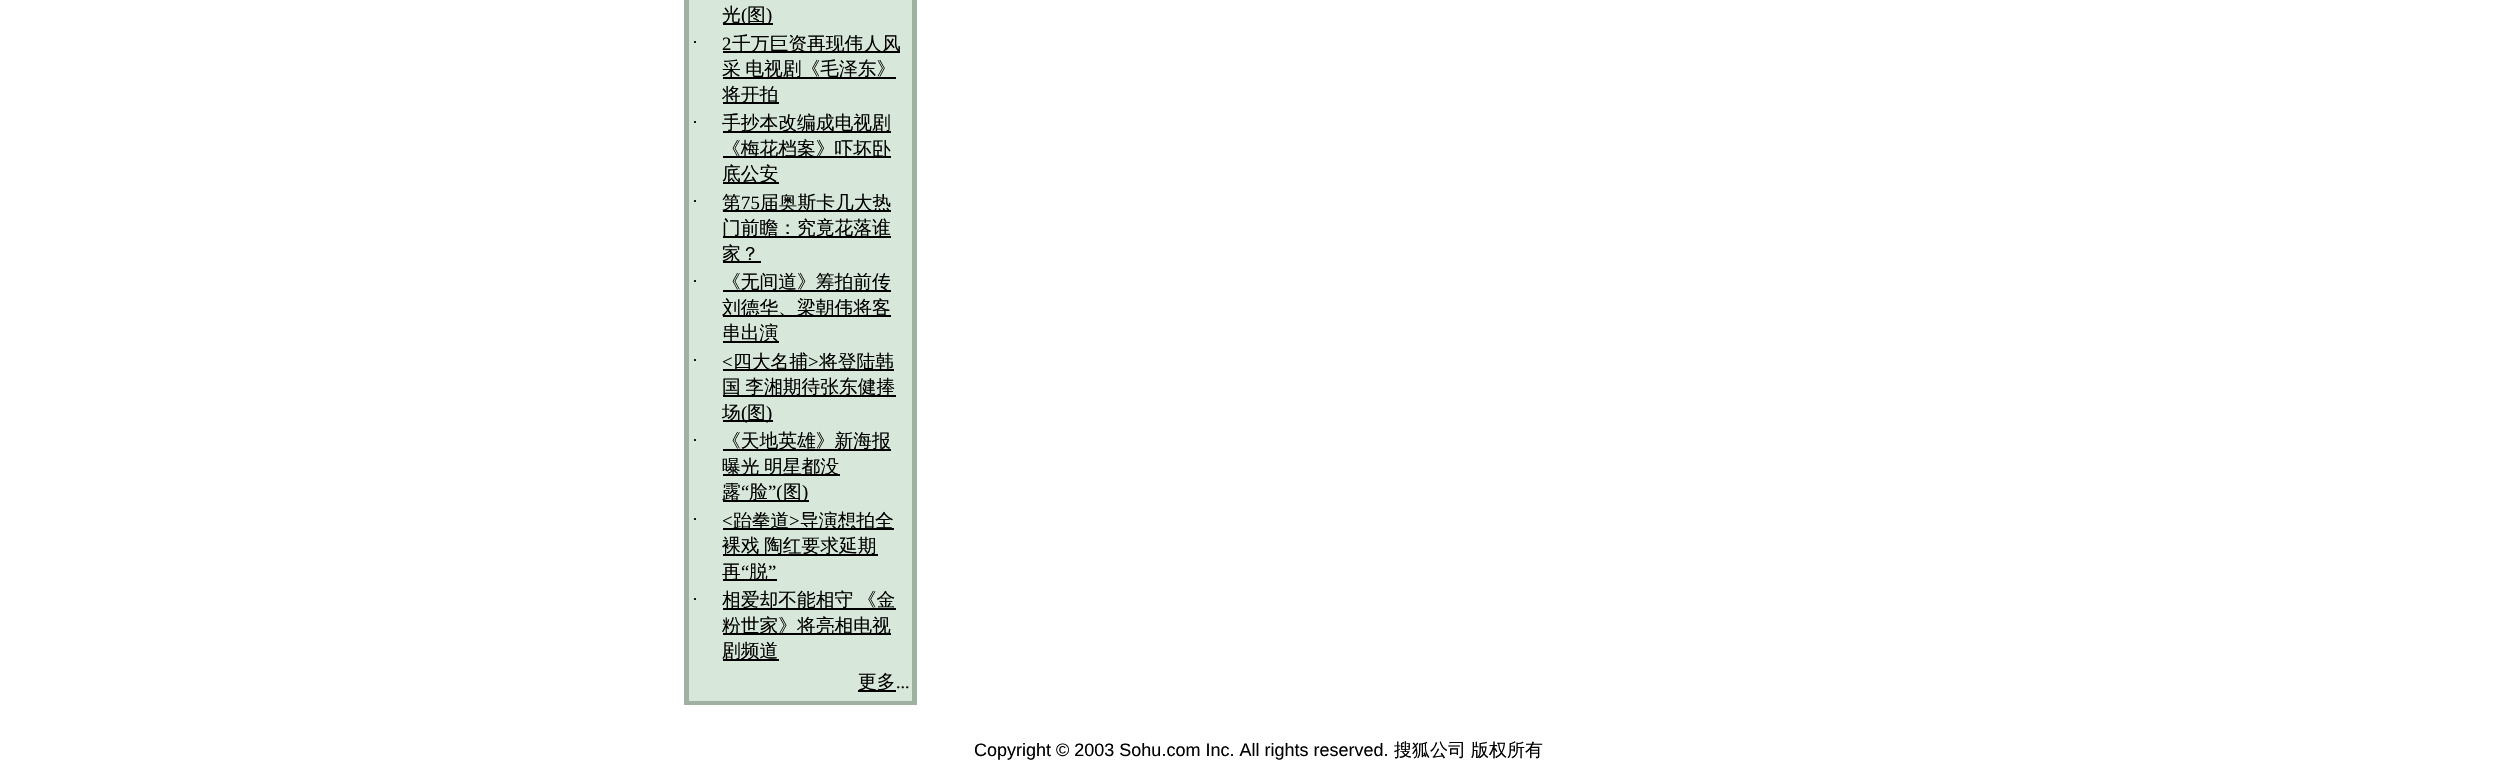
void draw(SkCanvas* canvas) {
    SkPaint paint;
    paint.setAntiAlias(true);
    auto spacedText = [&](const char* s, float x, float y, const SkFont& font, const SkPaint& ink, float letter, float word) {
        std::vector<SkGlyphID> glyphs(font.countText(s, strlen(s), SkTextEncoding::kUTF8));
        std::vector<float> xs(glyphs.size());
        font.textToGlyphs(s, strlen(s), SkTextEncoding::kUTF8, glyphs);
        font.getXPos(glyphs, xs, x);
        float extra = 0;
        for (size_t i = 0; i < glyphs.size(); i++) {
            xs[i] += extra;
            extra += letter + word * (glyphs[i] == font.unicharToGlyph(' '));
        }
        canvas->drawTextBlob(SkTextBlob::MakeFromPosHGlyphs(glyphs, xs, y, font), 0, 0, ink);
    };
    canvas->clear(0xFFFFFFFF);
    paint.setColor(0xFF9FB1A0);
    canvas->drawRect(SkRect::MakeXYWH(684, 0, 233, 705), paint);
    paint.setColor(0xFFD7E7D9);
    canvas->drawRect(SkRect::MakeXYWH(689, 0, 223, 701), paint);
    paint.setColor(0xFF000000);
    canvas->drawRect(SkRect::MakeXYWH(723, 23, 50, 2), paint);
    SkFont font1(fontMgr->matchFamilyStyle("WenQuanYi Zen Hei", SkFontStyle(500, SkFontStyle::kNormal_Width, SkFontStyle::kUpright_Slant)), 18.75f);
    font1.setSubpixel(true);
    canvas->drawString("光", 722, 21, font1, paint);
    SkFont font2(fontMgr->matchFamilyStyle("Liberation Serif", SkFontStyle::Normal()), 18.75f);
    font2.setSubpixel(true);
    canvas->drawString("(", 741, 21, font2, paint);
    canvas->drawString("图", 747, 21, font1, paint);
    canvas->drawString(")", 766, 21, font2, paint);
    SkFont font3(fontMgr->matchFamilyStyle("Liberation Serif", SkFontStyle::Normal()), 18);
    font3.setSubpixel(true);
    canvas->drawString("·", 692, 48, font3, paint);
    canvas->drawString("2", 722, 50, font2, paint);
    canvas->drawRect(SkRect::MakeXYWH(723, 51, 177, 2), paint);
    canvas->drawString("千万巨资再现伟人风", 732, 50, font1, paint);
    canvas->drawRect(SkRect::MakeXYWH(723, 77, 173, 2), paint);
    spacedText("采 电视剧《毛泽东》", 722, 75, font1, paint, 0, -1);
    canvas->drawRect(SkRect::MakeXYWH(723, 102, 56, 2), paint);
    canvas->drawString("将开拍", 722, 101, font1, paint);
    canvas->drawString("·", 692, 128, font3, paint);
    canvas->drawRect(SkRect::MakeXYWH(723, 131, 168, 2), paint);
    canvas->drawString("手抄本改编成电视剧", 722, 129, font1, paint);
    canvas->drawRect(SkRect::MakeXYWH(723, 156, 168, 2), paint);
    canvas->drawString("《梅花档案》吓坏卧", 722, 155, font1, paint);
    canvas->drawRect(SkRect::MakeXYWH(723, 182, 56, 2), paint);
    canvas->drawString("底公安", 722, 180, font1, paint);
    canvas->drawString("·", 692, 207, font3, paint);
    canvas->drawRect(SkRect::MakeXYWH(723, 210, 168, 2), paint);
    canvas->drawString("第", 722, 209, font1, paint);
    canvas->drawString("75", 741, 209, font2, paint);
    canvas->drawString("届奥斯卡几大热", 760, 209, font1, paint);
    canvas->drawRect(SkRect::MakeXYWH(723, 236, 168, 2), paint);
    canvas->drawString("门前瞻：究竟花落谁", 722, 234, font1, paint);
    canvas->drawRect(SkRect::MakeXYWH(723, 261, 38, 2), paint);
    canvas->drawString("家？", 722, 260, font1, paint);
    canvas->drawString("·", 692, 287, font3, paint);
    canvas->drawRect(SkRect::MakeXYWH(723, 290, 168, 2), paint);
    canvas->drawString("《无间道》筹拍前传", 722, 288, font1, paint);
    canvas->drawRect(SkRect::MakeXYWH(723, 315, 168, 2), paint);
    canvas->drawString("刘德华、梁朝伟将客", 722, 314, font1, paint);
    canvas->drawRect(SkRect::MakeXYWH(723, 341, 56, 2), paint);
    canvas->drawString("串出演", 722, 339, font1, paint);
    canvas->drawString("·", 692, 366, font3, paint);
    canvas->drawString("<", 722, 368, font2, paint);
    canvas->drawRect(SkRect::MakeXYWH(723, 369, 171, 2), paint);
    canvas->drawString("四大名捕", 733, 368, font1, paint);
    canvas->drawString(">", 808, 368, font2, paint);
    canvas->drawString("将登陆韩", 819, 368, font1, paint);
    canvas->drawRect(SkRect::MakeXYWH(723, 395, 173, 2), paint);
    spacedText("国 李湘期待张东健捧", 722, 393, font1, paint, 0, -1);
    canvas->drawRect(SkRect::MakeXYWH(723, 420, 50, 2), paint);
    canvas->drawString("场", 722, 419, font1, paint);
    canvas->drawString("(", 741, 419, font2, paint);
    canvas->drawString("图", 747, 419, font1, paint);
    canvas->drawString(")", 766, 419, font2, paint);
    canvas->drawString("·", 692, 446, font3, paint);
    canvas->drawRect(SkRect::MakeXYWH(723, 449, 168, 2), paint);
    canvas->drawString("《天地英雄》新海报", 722, 447, font1, paint);
    canvas->drawRect(SkRect::MakeXYWH(723, 474, 117, 2), paint);
    spacedText("曝光 明星都没", 722, 473, font1, paint, 0, -1);
    canvas->drawRect(SkRect::MakeXYWH(723, 500, 86, 2), paint);
    canvas->drawString("露", 722, 498, font1, paint);
    canvas->drawString("“", 741, 498, font2, paint);
    canvas->drawString("脸", 749, 498, font1, paint);
    canvas->drawString("”(", 768, 498, font2, paint);
    canvas->drawString("图", 783, 498, font1, paint);
    canvas->drawString(")", 802, 498, font2, paint);
    canvas->drawString("·", 692, 525, font3, paint);
    canvas->drawString("<", 722, 527, font2, paint);
    canvas->drawRect(SkRect::MakeXYWH(723, 528, 171, 2), paint);
    canvas->drawString("跆拳道", 733, 527, font1, paint);
    canvas->drawString(">", 789, 527, font2, paint);
    canvas->drawString("导演想拍全", 800, 527, font1, paint);
    canvas->drawRect(SkRect::MakeXYWH(723, 554, 155, 2), paint);
    spacedText("裸戏 陶红要求延期", 722, 552, font1, paint, 0, -1);
    canvas->drawRect(SkRect::MakeXYWH(723, 579, 54, 2), paint);
    canvas->drawString("再", 722, 578, font1, paint);
    canvas->drawString("“", 741, 578, font2, paint);
    canvas->drawString("脱", 749, 578, font1, paint);
    canvas->drawString("”", 768, 578, font2, paint);
    canvas->drawString("·", 692, 605, font3, paint);
    canvas->drawRect(SkRect::MakeXYWH(723, 608, 173, 2), paint);
    spacedText("相爱却不能相守 《金", 722, 606, font1, paint, 0, -1);
    canvas->drawRect(SkRect::MakeXYWH(723, 633, 168, 2), paint);
    canvas->drawString("粉世家》将亮相电视", 722, 632, font1, paint);
    canvas->drawRect(SkRect::MakeXYWH(723, 659, 56, 2), paint);
    canvas->drawString("剧频道", 722, 657, font1, paint);
    canvas->drawRect(SkRect::MakeXYWH(858, 690, 38, 2), paint);
    canvas->drawString("更多", 858, 688, font1, paint);
    canvas->drawString("...", 896, 688, font3, paint);
    SkFont font4(fontMgr->matchFamilyStyle("Liberation Sans", SkFontStyle::Normal()), 18);
    font4.setSubpixel(true);
    canvas->drawString("Copyright © 2003 Sohu.com Inc. All rights reserved.", 974, 756, font4, paint);
    SkFont font5(fontMgr->matchFamilyStyle("WenQuanYi Zen Hei", SkFontStyle(500, SkFontStyle::kNormal_Width, SkFontStyle::kUpright_Slant)), 18);
    font5.setSubpixel(true);
    canvas->drawString("搜狐公司", 1394, 756, font5, paint);
    canvas->drawString("版权所有", 1471, 756, font5, paint);
}
